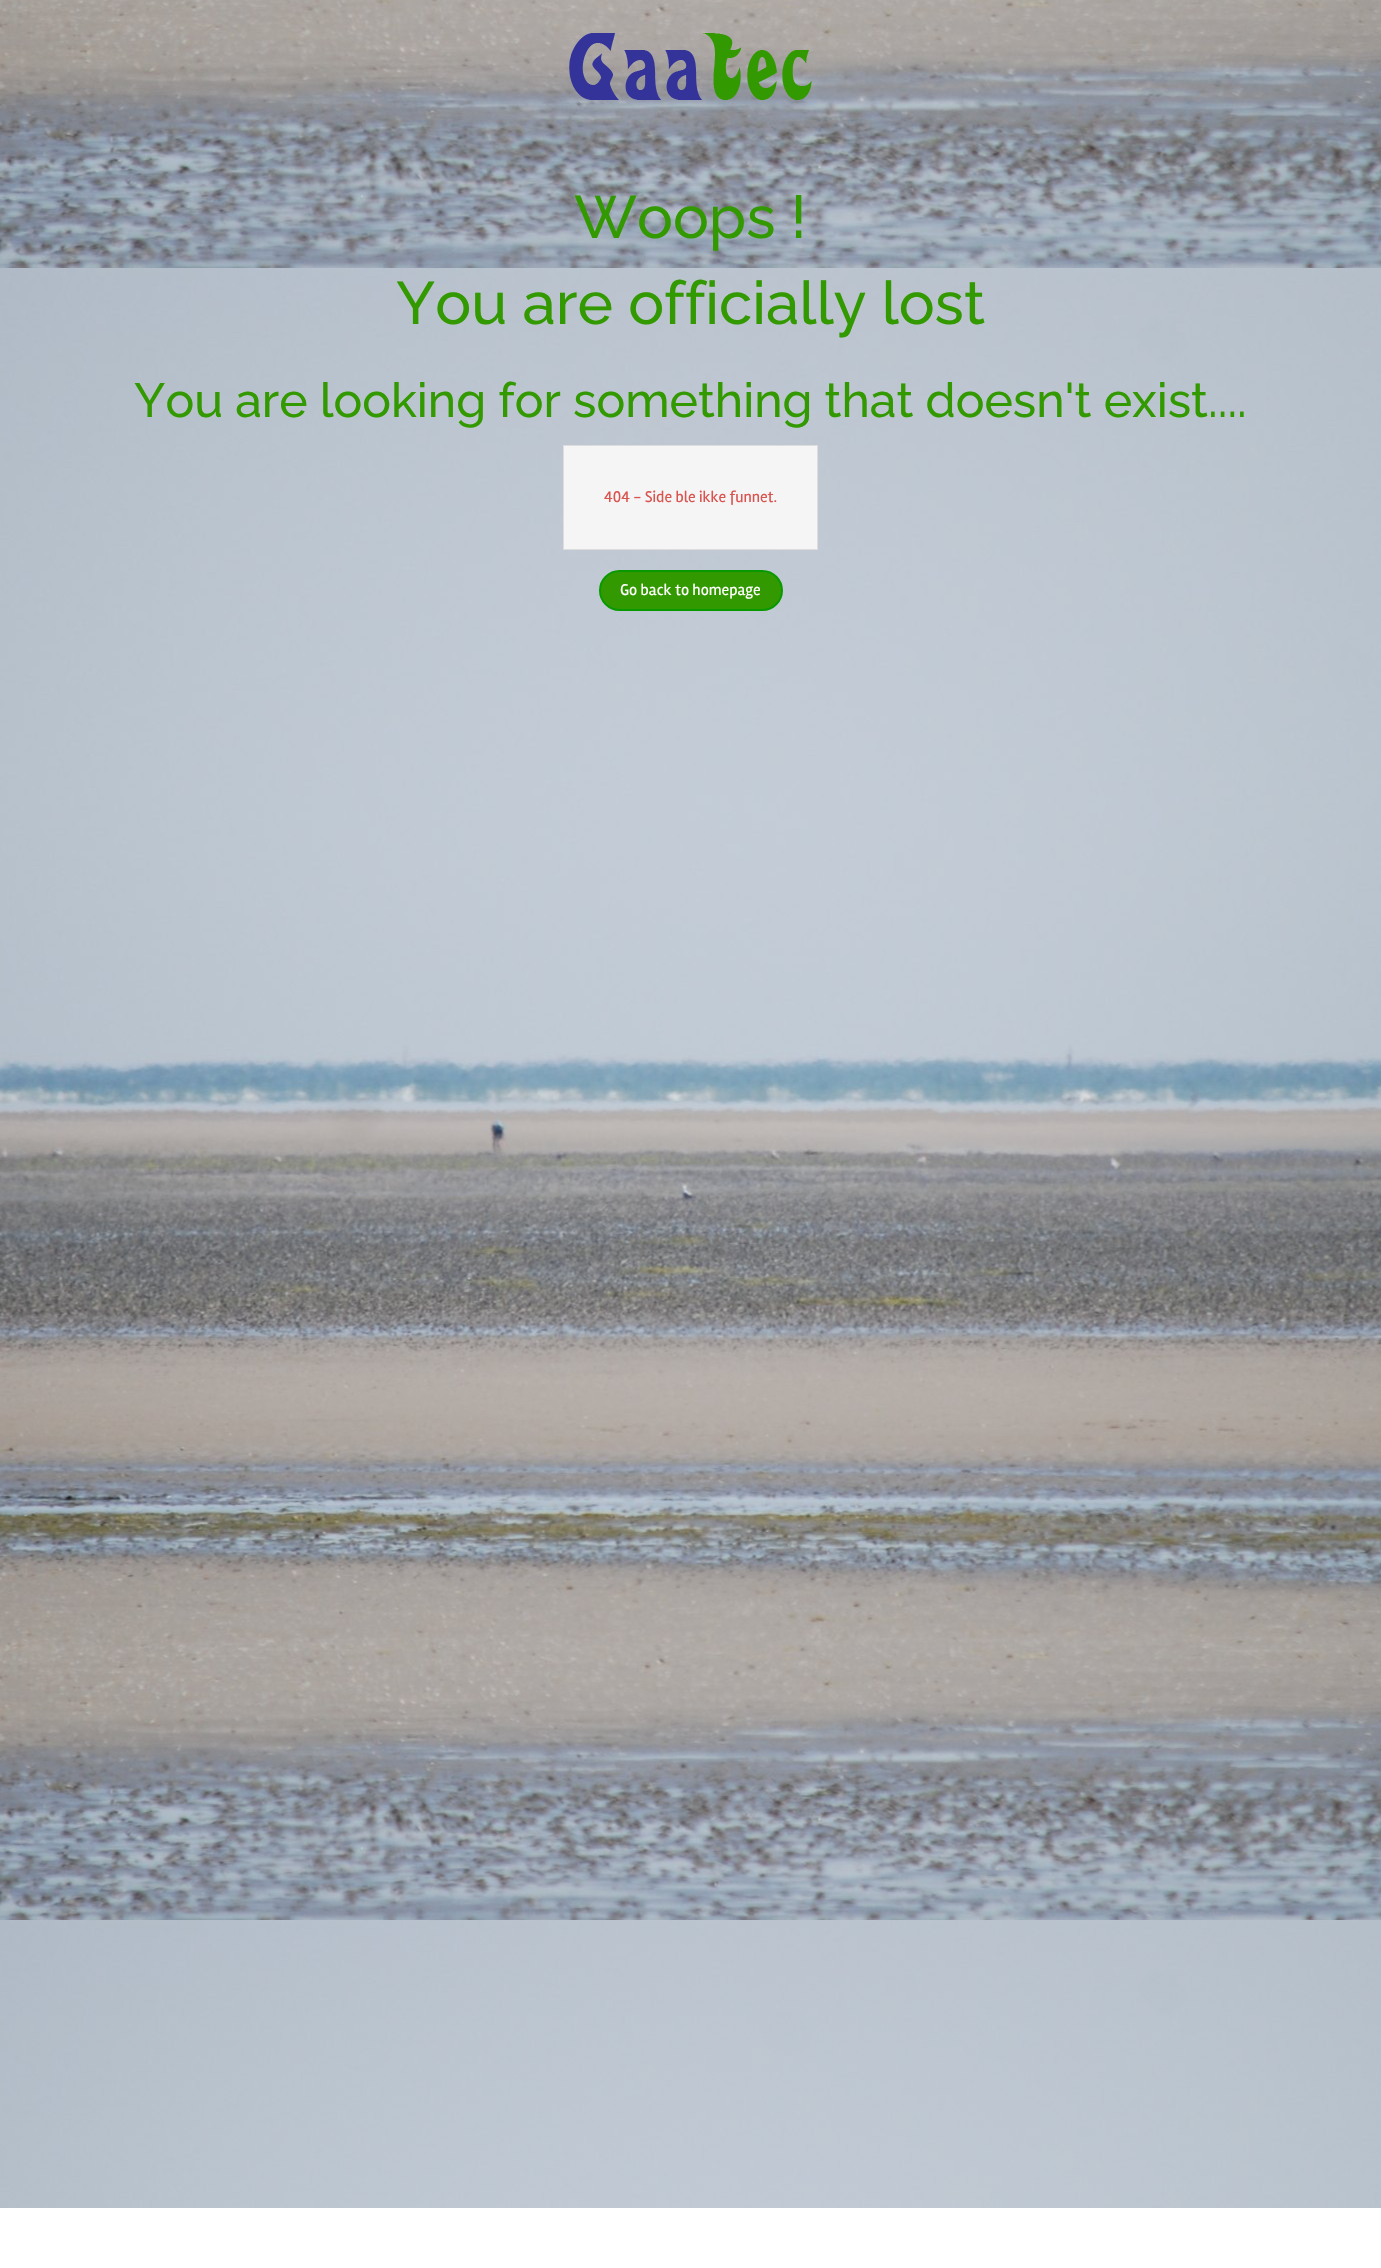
void draw(SkCanvas* canvas) {
    SkPaint paint;
    paint.setAntiAlias(true);
    canvas->clear(0xFFFFFFFF);
    canvas->drawImageRect(SkImages::DeferredFromEncodedData(SkData::MakeFromFileName("img1.png")), SkRect::MakeXYWH(0, 0, 1381, 2208), SkSamplingOptions());
    canvas->drawImageRect(SkImages::DeferredFromEncodedData(SkData::MakeFromFileName("img2.png")), SkRect::MakeXYWH(569, 33, 243, 67), SkSamplingOptions());
    SkFont font1(fontMgr->matchFamilyStyle("Raleway", SkFontStyle(500, SkFontStyle::kNormal_Width, SkFontStyle::kUpright_Slant)), 60);
    font1.setSubpixel(true);
    paint.setColor(0xFF339900);
    canvas->drawString("Woops !", 574, 238, font1, paint);
    canvas->drawString("You are officially lost", 396, 324, font1, paint);
    SkFont font2(fontMgr->matchFamilyStyle("Raleway", SkFontStyle(500, SkFontStyle::kNormal_Width, SkFontStyle::kUpright_Slant)), 48);
    font2.setSubpixel(true);
    canvas->drawString("You are looking for something that doesn't exist....", 134, 417, font2, paint);
    paint.setColor(0xFFF5F5F5);
    canvas->drawRect(SkRect::MakeXYWH(563.5f, 445.5f, 254, 104), paint);
    paint.setStyle(SkPaint::kStroke_Style);
    paint.setStrokeWidth(1);
    paint.setColor(0xFFDDDDDD);
    canvas->drawRect(SkRect::MakeXYWH(563.5f, 445.5f, 254, 104), paint);
    SkFont font3(fontMgr->matchFamilyStyle("Rambla", SkFontStyle::Normal()), 16);
    font3.setSubpixel(true);
    paint.setStyle(SkPaint::kFill_Style);
    paint.setColor(0xFFD9534F);
    canvas->drawString("404 - Side ble ikke funnet.", 604, 502, font3, paint);
    paint.setColor(0xFF339900);
    canvas->drawRoundRect(SkRect::MakeXYWH(600, 571, 182, 39), 19.5f, 19.5f, paint);
    paint.setStyle(SkPaint::kStroke_Style);
    paint.setStrokeWidth(2);
    paint.setColor(0xFF089900);
    canvas->drawRoundRect(SkRect::MakeXYWH(600, 571, 182, 39), 19.5f, 19.5f, paint);
    paint.setStyle(SkPaint::kFill_Style);
    paint.setColor(0xFFFFFFFF);
    canvas->drawString("Go back to homepage", 620, 595, font3, paint);
}
